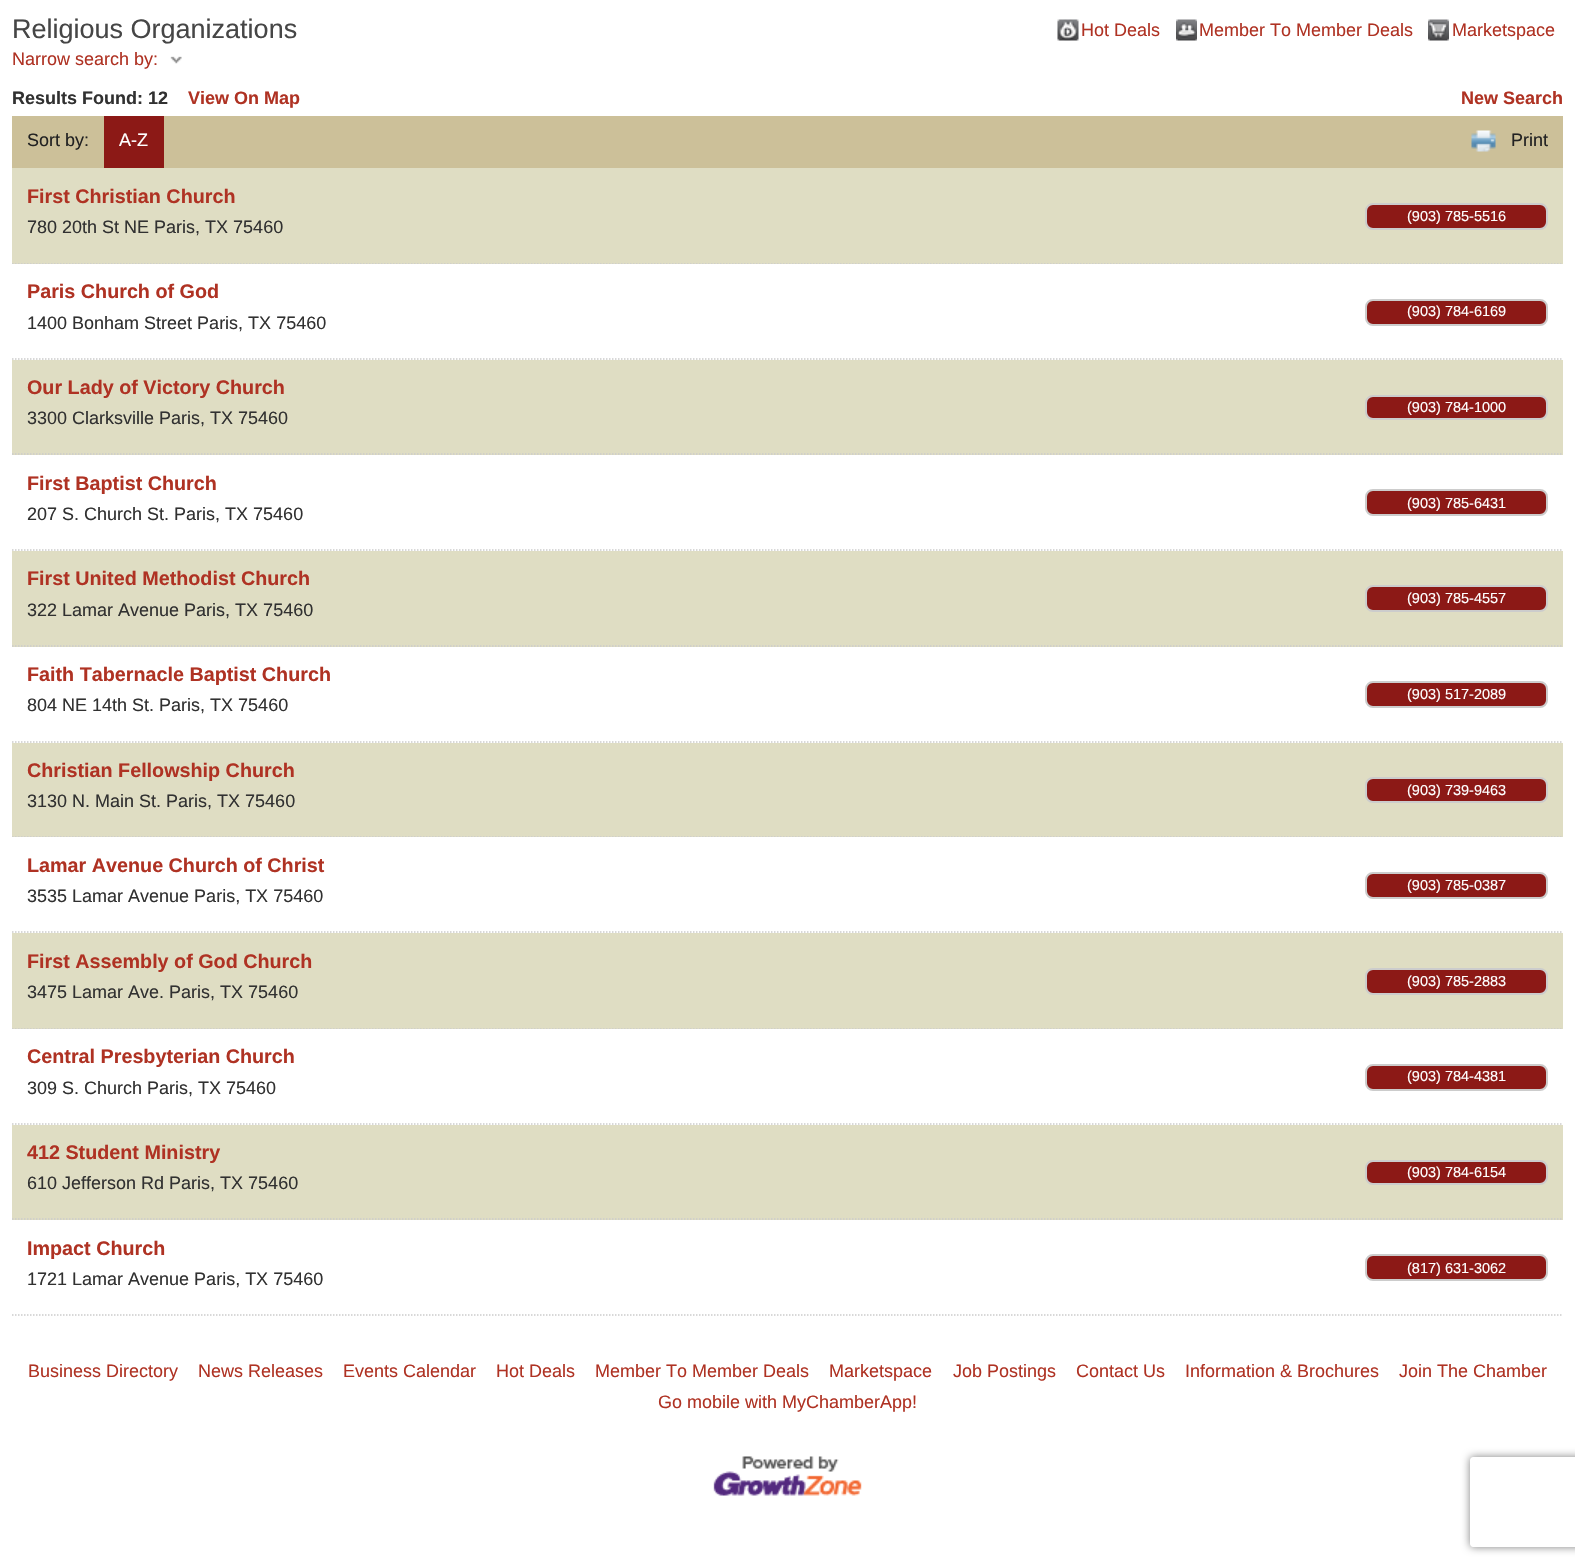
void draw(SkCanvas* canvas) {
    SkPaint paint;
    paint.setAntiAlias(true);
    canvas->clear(0xFFFFFFFF);
    SkFont font1(fontMgr->matchFamilyStyle("Liberation Sans", SkFontStyle::Normal()), 27);
    font1.setSubpixel(true);
    paint.setColor(0xFF464646);
    canvas->drawString("Religious Organizations", 12, 38, font1, paint);
    canvas->drawImageRect(SkImages::DeferredFromEncodedData(SkData::MakeFromFileName("img1.png")), SkRect::MakeXYWH(1057, 19, 22, 22), SkSamplingOptions());
    SkFont font2(fontMgr->matchFamilyStyle("Liberation Sans", SkFontStyle::Normal()), 18);
    font2.setSubpixel(true);
    paint.setColor(0xFFAF3223);
    canvas->drawString("Hot Deals", 1081, 36, font2, paint);
    canvas->drawImageRect(SkImages::DeferredFromEncodedData(SkData::MakeFromFileName("img2.png")), SkRect::MakeXYWH(1176, 19, 21, 22), SkSamplingOptions());
    canvas->drawString("Member To Member Deals", 1199, 36, font2, paint);
    canvas->drawImageRect(SkImages::DeferredFromEncodedData(SkData::MakeFromFileName("img3.png")), SkRect::MakeXYWH(1428, 19, 21, 22), SkSamplingOptions());
    canvas->drawString("Marketspace", 1452, 36, font2, paint);
    canvas->drawString("Narrow search by:", 12, 65, font2, paint);
    canvas->drawImageRect(SkImages::DeferredFromEncodedData(SkData::MakeFromFileName("img4.png")), SkRect::MakeXYWH(170, 56, 12, 8), SkSamplingOptions());
    SkFont font3(fontMgr->matchFamilyStyle("Liberation Sans", SkFontStyle::Bold()), 18);
    font3.setSubpixel(true);
    paint.setColor(0xFF313131);
    canvas->drawString("Results Found: 12", 12, 104, font3, paint);
    paint.setColor(0xFFAF3223);
    canvas->drawString("View On Map", 188, 104, font3, paint);
    canvas->drawString("New Search", 1461, 104, font3, paint);
    paint.setColor(0xFFCCC099);
    canvas->drawRect(SkRect::MakeXYWH(12, 116, 1551, 52), paint);
    paint.setColor(0xFF222222);
    canvas->drawString("Sort by:", 27, 146, font2, paint);
    paint.setColor(0xFF8C1916);
    canvas->drawRect(SkRect::MakeXYWH(104, 116, 60, 52), paint);
    paint.setColor(0xFFFFFFFF);
    canvas->drawString("A-Z", 119, 146, font2, paint);
    canvas->drawImageRect(SkImages::DeferredFromEncodedData(SkData::MakeFromFileName("img5.png")), SkRect::MakeXYWH(1471, 130, 25, 22), SkSamplingOptions());
    paint.setColor(0xFF222222);
    canvas->drawString("Print", 1511, 146, font2, paint);
    paint.setColor(0xFFDFDDC3);
    canvas->drawRect(SkRect::MakeXYWH(12, 263, 1551, 1), paint);
    paint.setStyle(SkPaint::kStroke_Style);
    paint.setStrokeWidth(1.5f);
    paint.setColor(0xFFCCCCCC);
    paint.setPathEffect(SkDashPathEffect::Make({{1.5f, 1.5f}}, 0));
    canvas->drawPath(SkPathBuilder().moveTo(12, 263).lineTo(1563, 263).detach(), paint);
    paint.setPathEffect(nullptr);
    paint.setStyle(SkPaint::kFill_Style);
    paint.setColor(0xFFDFDDC3);
    canvas->drawRect(SkRect::MakeXYWH(12, 168, 1551, 95), paint);
    SkFont font4(fontMgr->matchFamilyStyle("Liberation Sans", SkFontStyle::Bold()), 19.75f);
    font4.setSubpixel(true);
    paint.setColor(0xFFAF3223);
    canvas->drawString("First Christian Church", 27, 203, font4, paint);
    paint.setColor(0xFF313131);
    canvas->drawString("780 20th St NE Paris, TX 75460", 27, 233, font2, paint);
    paint.setColor(0xFF8C1916);
    canvas->drawRoundRect(SkRect::MakeXYWH(1366, 204, 181, 25), 7, 7, paint);
    paint.setStyle(SkPaint::kStroke_Style);
    paint.setStrokeWidth(2);
    paint.setColor(0xFFCCCCCC);
    canvas->drawRoundRect(SkRect::MakeXYWH(1366, 204, 181, 25), 7, 7, paint);
    SkFont font5(fontMgr->matchFamilyStyle("Liberation Sans", SkFontStyle::Normal()), 14.5f);
    font5.setSubpixel(true);
    paint.setStyle(SkPaint::kFill_Style);
    paint.setColor(0xFFFFFFFF);
    canvas->drawString("(903) 785-5516", 1407, 221, font5, paint);
    paint.setStyle(SkPaint::kStroke_Style);
    paint.setStrokeWidth(1.5f);
    paint.setColor(0xFFCCCCCC);
    paint.setPathEffect(SkDashPathEffect::Make({{1.5f, 1.5f}}, 0));
    canvas->drawPath(SkPathBuilder().moveTo(12, 359).lineTo(1563, 359).detach(), paint);
    paint.setPathEffect(nullptr);
    paint.setStyle(SkPaint::kFill_Style);
    paint.setColor(0xFFAF3223);
    canvas->drawString("Paris Church of God", 27, 298, font4, paint);
    paint.setColor(0xFF313131);
    canvas->drawString("1400 Bonham Street Paris, TX 75460", 27, 329, font2, paint);
    paint.setColor(0xFF8C1916);
    canvas->drawRoundRect(SkRect::MakeXYWH(1366, 300, 181, 25), 7, 7, paint);
    paint.setStyle(SkPaint::kStroke_Style);
    paint.setStrokeWidth(2);
    paint.setColor(0xFFCCCCCC);
    canvas->drawRoundRect(SkRect::MakeXYWH(1366, 300, 181, 25), 7, 7, paint);
    paint.setStyle(SkPaint::kFill_Style);
    paint.setColor(0xFFFFFFFF);
    canvas->drawString("(903) 784-6169", 1407, 316, font5, paint);
    paint.setColor(0xFFDFDDC3);
    canvas->drawRect(SkRect::MakeXYWH(12, 360, 1551, 95), paint);
    paint.setStyle(SkPaint::kStroke_Style);
    paint.setStrokeWidth(1.5f);
    paint.setColor(0xFFCCCCCC);
    paint.setPathEffect(SkDashPathEffect::Make({{1.5f, 1.5f}}, 0));
    canvas->drawPath(SkPathBuilder().moveTo(12, 454).lineTo(1563, 454).detach(), paint);
    paint.setPathEffect(nullptr);
    paint.setStyle(SkPaint::kFill_Style);
    paint.setColor(0xFFAF3223);
    canvas->drawString("Our Lady of Victory Church", 27, 394, font4, paint);
    paint.setColor(0xFF313131);
    canvas->drawString("3300 Clarksville Paris, TX 75460", 27, 424, font2, paint);
    paint.setColor(0xFF8C1916);
    canvas->drawRoundRect(SkRect::MakeXYWH(1366, 396, 181, 23), 7, 7, paint);
    paint.setStyle(SkPaint::kStroke_Style);
    paint.setStrokeWidth(2);
    paint.setColor(0xFFCCCCCC);
    canvas->drawRoundRect(SkRect::MakeXYWH(1366, 396, 181, 23), 7, 7, paint);
    paint.setStyle(SkPaint::kFill_Style);
    paint.setColor(0xFFFFFFFF);
    canvas->drawString("(903) 784-1000", 1407, 412, font5, paint);
    paint.setStyle(SkPaint::kStroke_Style);
    paint.setStrokeWidth(1.5f);
    paint.setColor(0xFFCCCCCC);
    paint.setPathEffect(SkDashPathEffect::Make({{1.5f, 1.5f}}, 0));
    canvas->drawPath(SkPathBuilder().moveTo(12, 550).lineTo(1563, 550).detach(), paint);
    paint.setPathEffect(nullptr);
    paint.setStyle(SkPaint::kFill_Style);
    paint.setColor(0xFFAF3223);
    canvas->drawString("First Baptist Church", 27, 490, font4, paint);
    paint.setColor(0xFF313131);
    canvas->drawString("207 S. Church St. Paris, TX 75460", 27, 520, font2, paint);
    paint.setColor(0xFF8C1916);
    canvas->drawRoundRect(SkRect::MakeXYWH(1366, 490, 181, 25), 7, 7, paint);
    paint.setStyle(SkPaint::kStroke_Style);
    paint.setStrokeWidth(2);
    paint.setColor(0xFFCCCCCC);
    canvas->drawRoundRect(SkRect::MakeXYWH(1366, 490, 181, 25), 7, 7, paint);
    paint.setStyle(SkPaint::kFill_Style);
    paint.setColor(0xFFFFFFFF);
    canvas->drawString("(903) 785-6431", 1407, 508, font5, paint);
    paint.setColor(0xFFDFDDC3);
    canvas->drawRect(SkRect::MakeXYWH(12, 551, 1551, 96), paint);
    paint.setStyle(SkPaint::kStroke_Style);
    paint.setStrokeWidth(1.5f);
    paint.setColor(0xFFCCCCCC);
    paint.setPathEffect(SkDashPathEffect::Make({{1.5f, 1.5f}}, 0));
    canvas->drawPath(SkPathBuilder().moveTo(12, 646).lineTo(1563, 646).detach(), paint);
    paint.setPathEffect(nullptr);
    paint.setStyle(SkPaint::kFill_Style);
    paint.setColor(0xFFAF3223);
    canvas->drawString("First United Methodist Church", 27, 585, font4, paint);
    paint.setColor(0xFF313131);
    canvas->drawString("322 Lamar Avenue Paris, TX 75460", 27, 616, font2, paint);
    paint.setColor(0xFF8C1916);
    canvas->drawRoundRect(SkRect::MakeXYWH(1366, 586, 181, 25), 7, 7, paint);
    paint.setStyle(SkPaint::kStroke_Style);
    paint.setStrokeWidth(2);
    paint.setColor(0xFFCCCCCC);
    canvas->drawRoundRect(SkRect::MakeXYWH(1366, 586, 181, 25), 7, 7, paint);
    paint.setStyle(SkPaint::kFill_Style);
    paint.setColor(0xFFFFFFFF);
    canvas->drawString("(903) 785-4557", 1407, 603, font5, paint);
    paint.setStyle(SkPaint::kStroke_Style);
    paint.setStrokeWidth(1.5f);
    paint.setColor(0xFFCCCCCC);
    paint.setPathEffect(SkDashPathEffect::Make({{1.5f, 1.5f}}, 0));
    canvas->drawPath(SkPathBuilder().moveTo(12, 742).lineTo(1563, 742).detach(), paint);
    paint.setPathEffect(nullptr);
    paint.setStyle(SkPaint::kFill_Style);
    paint.setColor(0xFFAF3223);
    canvas->drawString("Faith Tabernacle Baptist Church", 27, 681, font4, paint);
    paint.setColor(0xFF313131);
    canvas->drawString("804 NE 14th St. Paris, TX 75460", 27, 711, font2, paint);
    paint.setColor(0xFF8C1916);
    canvas->drawRoundRect(SkRect::MakeXYWH(1366, 682, 181, 25), 7, 7, paint);
    paint.setStyle(SkPaint::kStroke_Style);
    paint.setStrokeWidth(2);
    paint.setColor(0xFFCCCCCC);
    canvas->drawRoundRect(SkRect::MakeXYWH(1366, 682, 181, 25), 7, 7, paint);
    paint.setStyle(SkPaint::kFill_Style);
    paint.setColor(0xFFFFFFFF);
    canvas->drawString("(903) 517-2089", 1407, 699, font5, paint);
    paint.setColor(0xFFDFDDC3);
    canvas->drawRect(SkRect::MakeXYWH(12, 836, 1551, 1), paint);
    paint.setStyle(SkPaint::kStroke_Style);
    paint.setStrokeWidth(1.5f);
    paint.setColor(0xFFCCCCCC);
    paint.setPathEffect(SkDashPathEffect::Make({{1.5f, 1.5f}}, 0));
    canvas->drawPath(SkPathBuilder().moveTo(12, 836).lineTo(1563, 836).detach(), paint);
    paint.setPathEffect(nullptr);
    paint.setStyle(SkPaint::kFill_Style);
    paint.setColor(0xFFDFDDC3);
    canvas->drawRect(SkRect::MakeXYWH(12, 743, 1551, 93), paint);
    paint.setColor(0xFFAF3223);
    canvas->drawString("Christian Fellowship Church", 27, 777, font4, paint);
    paint.setColor(0xFF313131);
    canvas->drawString("3130 N. Main St. Paris, TX 75460", 27, 807, font2, paint);
    paint.setColor(0xFF8C1916);
    canvas->drawRoundRect(SkRect::MakeXYWH(1366, 778, 181, 24), 7, 7, paint);
    paint.setStyle(SkPaint::kStroke_Style);
    paint.setStrokeWidth(2);
    paint.setColor(0xFFCCCCCC);
    canvas->drawRoundRect(SkRect::MakeXYWH(1366, 778, 181, 24), 7, 7, paint);
    paint.setStyle(SkPaint::kFill_Style);
    paint.setColor(0xFFFFFFFF);
    canvas->drawString("(903) 739-9463", 1407, 795, font5, paint);
    paint.setStyle(SkPaint::kStroke_Style);
    paint.setStrokeWidth(1.5f);
    paint.setColor(0xFFCCCCCC);
    paint.setPathEffect(SkDashPathEffect::Make({{1.5f, 1.5f}}, 0));
    canvas->drawPath(SkPathBuilder().moveTo(12, 932).lineTo(1563, 932).detach(), paint);
    paint.setPathEffect(nullptr);
    paint.setStyle(SkPaint::kFill_Style);
    paint.setColor(0xFFAF3223);
    canvas->drawString("Lamar Avenue Church of Christ", 27, 872, font4, paint);
    paint.setColor(0xFF313131);
    canvas->drawString("3535 Lamar Avenue Paris, TX 75460", 27, 902, font2, paint);
    paint.setColor(0xFF8C1916);
    canvas->drawRoundRect(SkRect::MakeXYWH(1366, 873, 181, 25), 7, 7, paint);
    paint.setStyle(SkPaint::kStroke_Style);
    paint.setStrokeWidth(2);
    paint.setColor(0xFFCCCCCC);
    canvas->drawRoundRect(SkRect::MakeXYWH(1366, 873, 181, 25), 7, 7, paint);
    paint.setStyle(SkPaint::kFill_Style);
    paint.setColor(0xFFFFFFFF);
    canvas->drawString("(903) 785-0387", 1407, 890, font5, paint);
    paint.setColor(0xFFDFDDC3);
    canvas->drawRect(SkRect::MakeXYWH(12, 1028, 1551, 1), paint);
    paint.setStyle(SkPaint::kStroke_Style);
    paint.setStrokeWidth(1.5f);
    paint.setColor(0xFFCCCCCC);
    paint.setPathEffect(SkDashPathEffect::Make({{1.5f, 1.5f}}, 0));
    canvas->drawPath(SkPathBuilder().moveTo(12, 1028).lineTo(1563, 1028).detach(), paint);
    paint.setPathEffect(nullptr);
    paint.setStyle(SkPaint::kFill_Style);
    paint.setColor(0xFFDFDDC3);
    canvas->drawRect(SkRect::MakeXYWH(12, 933, 1551, 95), paint);
    paint.setColor(0xFFAF3223);
    canvas->drawString("First Assembly of God Church", 27, 968, font4, paint);
    paint.setColor(0xFF313131);
    canvas->drawString("3475 Lamar Ave. Paris, TX 75460", 27, 998, font2, paint);
    paint.setColor(0xFF8C1916);
    canvas->drawRoundRect(SkRect::MakeXYWH(1366, 969, 181, 25), 7, 7, paint);
    paint.setStyle(SkPaint::kStroke_Style);
    paint.setStrokeWidth(2);
    paint.setColor(0xFFCCCCCC);
    canvas->drawRoundRect(SkRect::MakeXYWH(1366, 969, 181, 25), 7, 7, paint);
    paint.setStyle(SkPaint::kFill_Style);
    paint.setColor(0xFFFFFFFF);
    canvas->drawString("(903) 785-2883", 1407, 986, font5, paint);
    paint.setStyle(SkPaint::kStroke_Style);
    paint.setStrokeWidth(1.5f);
    paint.setColor(0xFFCCCCCC);
    paint.setPathEffect(SkDashPathEffect::Make({{1.5f, 1.5f}}, 0));
    canvas->drawPath(SkPathBuilder().moveTo(12, 1124).lineTo(1563, 1124).detach(), paint);
    paint.setPathEffect(nullptr);
    paint.setStyle(SkPaint::kFill_Style);
    paint.setColor(0xFFAF3223);
    canvas->drawString("Central Presbyterian Church", 27, 1063, font4, paint);
    paint.setColor(0xFF313131);
    canvas->drawString("309 S. Church Paris, TX 75460", 27, 1094, font2, paint);
    paint.setColor(0xFF8C1916);
    canvas->drawRoundRect(SkRect::MakeXYWH(1366, 1065, 181, 25), 7, 7, paint);
    paint.setStyle(SkPaint::kStroke_Style);
    paint.setStrokeWidth(2);
    paint.setColor(0xFFCCCCCC);
    canvas->drawRoundRect(SkRect::MakeXYWH(1366, 1065, 181, 25), 7, 7, paint);
    paint.setStyle(SkPaint::kFill_Style);
    paint.setColor(0xFFFFFFFF);
    canvas->drawString("(903) 784-4381", 1407, 1081, font5, paint);
    paint.setColor(0xFFDFDDC3);
    canvas->drawRect(SkRect::MakeXYWH(12, 1125, 1551, 95), paint);
    paint.setStyle(SkPaint::kStroke_Style);
    paint.setStrokeWidth(1.5f);
    paint.setColor(0xFFCCCCCC);
    paint.setPathEffect(SkDashPathEffect::Make({{1.5f, 1.5f}}, 0));
    canvas->drawPath(SkPathBuilder().moveTo(12, 1219).lineTo(1563, 1219).detach(), paint);
    paint.setPathEffect(nullptr);
    paint.setStyle(SkPaint::kFill_Style);
    paint.setColor(0xFFAF3223);
    canvas->drawString("412 Student Ministry", 27, 1159, font4, paint);
    paint.setColor(0xFF313131);
    canvas->drawString("610 Jefferson Rd Paris, TX 75460", 27, 1189, font2, paint);
    paint.setColor(0xFF8C1916);
    canvas->drawRoundRect(SkRect::MakeXYWH(1366, 1161, 181, 23), 7, 7, paint);
    paint.setStyle(SkPaint::kStroke_Style);
    paint.setStrokeWidth(2);
    paint.setColor(0xFFCCCCCC);
    canvas->drawRoundRect(SkRect::MakeXYWH(1366, 1161, 181, 23), 7, 7, paint);
    paint.setStyle(SkPaint::kFill_Style);
    paint.setColor(0xFFFFFFFF);
    canvas->drawString("(903) 784-6154", 1407, 1177, font5, paint);
    paint.setStyle(SkPaint::kStroke_Style);
    paint.setStrokeWidth(1.5f);
    paint.setColor(0xFFCCCCCC);
    paint.setPathEffect(SkDashPathEffect::Make({{1.5f, 1.5f}}, 0));
    canvas->drawPath(SkPathBuilder().moveTo(12, 1315).lineTo(1563, 1315).detach(), paint);
    paint.setPathEffect(nullptr);
    paint.setStyle(SkPaint::kFill_Style);
    paint.setColor(0xFFAF3223);
    canvas->drawString("Impact Church", 27, 1255, font4, paint);
    paint.setColor(0xFF313131);
    canvas->drawString("1721 Lamar Avenue Paris, TX 75460", 27, 1285, font2, paint);
    paint.setColor(0xFF8C1916);
    canvas->drawRoundRect(SkRect::MakeXYWH(1366, 1255, 181, 25), 7, 7, paint);
    paint.setStyle(SkPaint::kStroke_Style);
    paint.setStrokeWidth(2);
    paint.setColor(0xFFCCCCCC);
    canvas->drawRoundRect(SkRect::MakeXYWH(1366, 1255, 181, 25), 7, 7, paint);
    paint.setStyle(SkPaint::kFill_Style);
    paint.setColor(0xFFFFFFFF);
    canvas->drawString("(817) 631-3062", 1407, 1273, font5, paint);
    paint.setColor(0xFFAF3223);
    canvas->drawString("Business Directory", 28, 1377, font2, paint);
    canvas->drawString("News Releases", 198, 1377, font2, paint);
    canvas->drawString("Events Calendar", 343, 1377, font2, paint);
    canvas->drawString("Hot Deals", 496, 1377, font2, paint);
    canvas->drawString("Member To Member Deals", 595, 1377, font2, paint);
    canvas->drawString("Marketspace", 829, 1377, font2, paint);
    canvas->drawString("Job Postings", 953, 1377, font2, paint);
    canvas->drawString("Contact Us", 1076, 1377, font2, paint);
    canvas->drawString("Information & Brochures", 1185, 1377, font2, paint);
    canvas->drawString("Join The Chamber", 1399, 1377, font2, paint);
    canvas->drawString("Go mobile with MyChamberApp!", 658, 1408, font2, paint);
    canvas->drawImageRect(SkImages::DeferredFromEncodedData(SkData::MakeFromFileName("img6.png")), SkRect::MakeXYWH(713, 1456, 149, 40), SkSamplingOptions());
    canvas->save();
    canvas->clipPath(SkPathBuilder(SkPathFillType::kEvenOdd).moveTo(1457, 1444).lineTo(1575, 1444).lineTo(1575, 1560).lineTo(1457, 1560).close().moveTo(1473, 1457).lineTo(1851, 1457).cubicTo(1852.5f, 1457, 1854, 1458.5f, 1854, 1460).lineTo(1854, 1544).cubicTo(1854, 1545.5f, 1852.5f, 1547, 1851, 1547).lineTo(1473, 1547).cubicTo(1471.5f, 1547, 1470, 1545.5f, 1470, 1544).lineTo(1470, 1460).cubicTo(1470, 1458.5f, 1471.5f, 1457, 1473, 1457).close().detach(), true);
    paint.setColor(0xFF808080);
    paint.setMaskFilter(SkMaskFilter::MakeBlur(kNormal_SkBlurStyle, 4));
    canvas->drawRoundRect(SkRect::MakeXYWH(1470, 1457, 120, 90), 3, 3, paint);
    paint.setMaskFilter(nullptr);
    canvas->restore();
}
